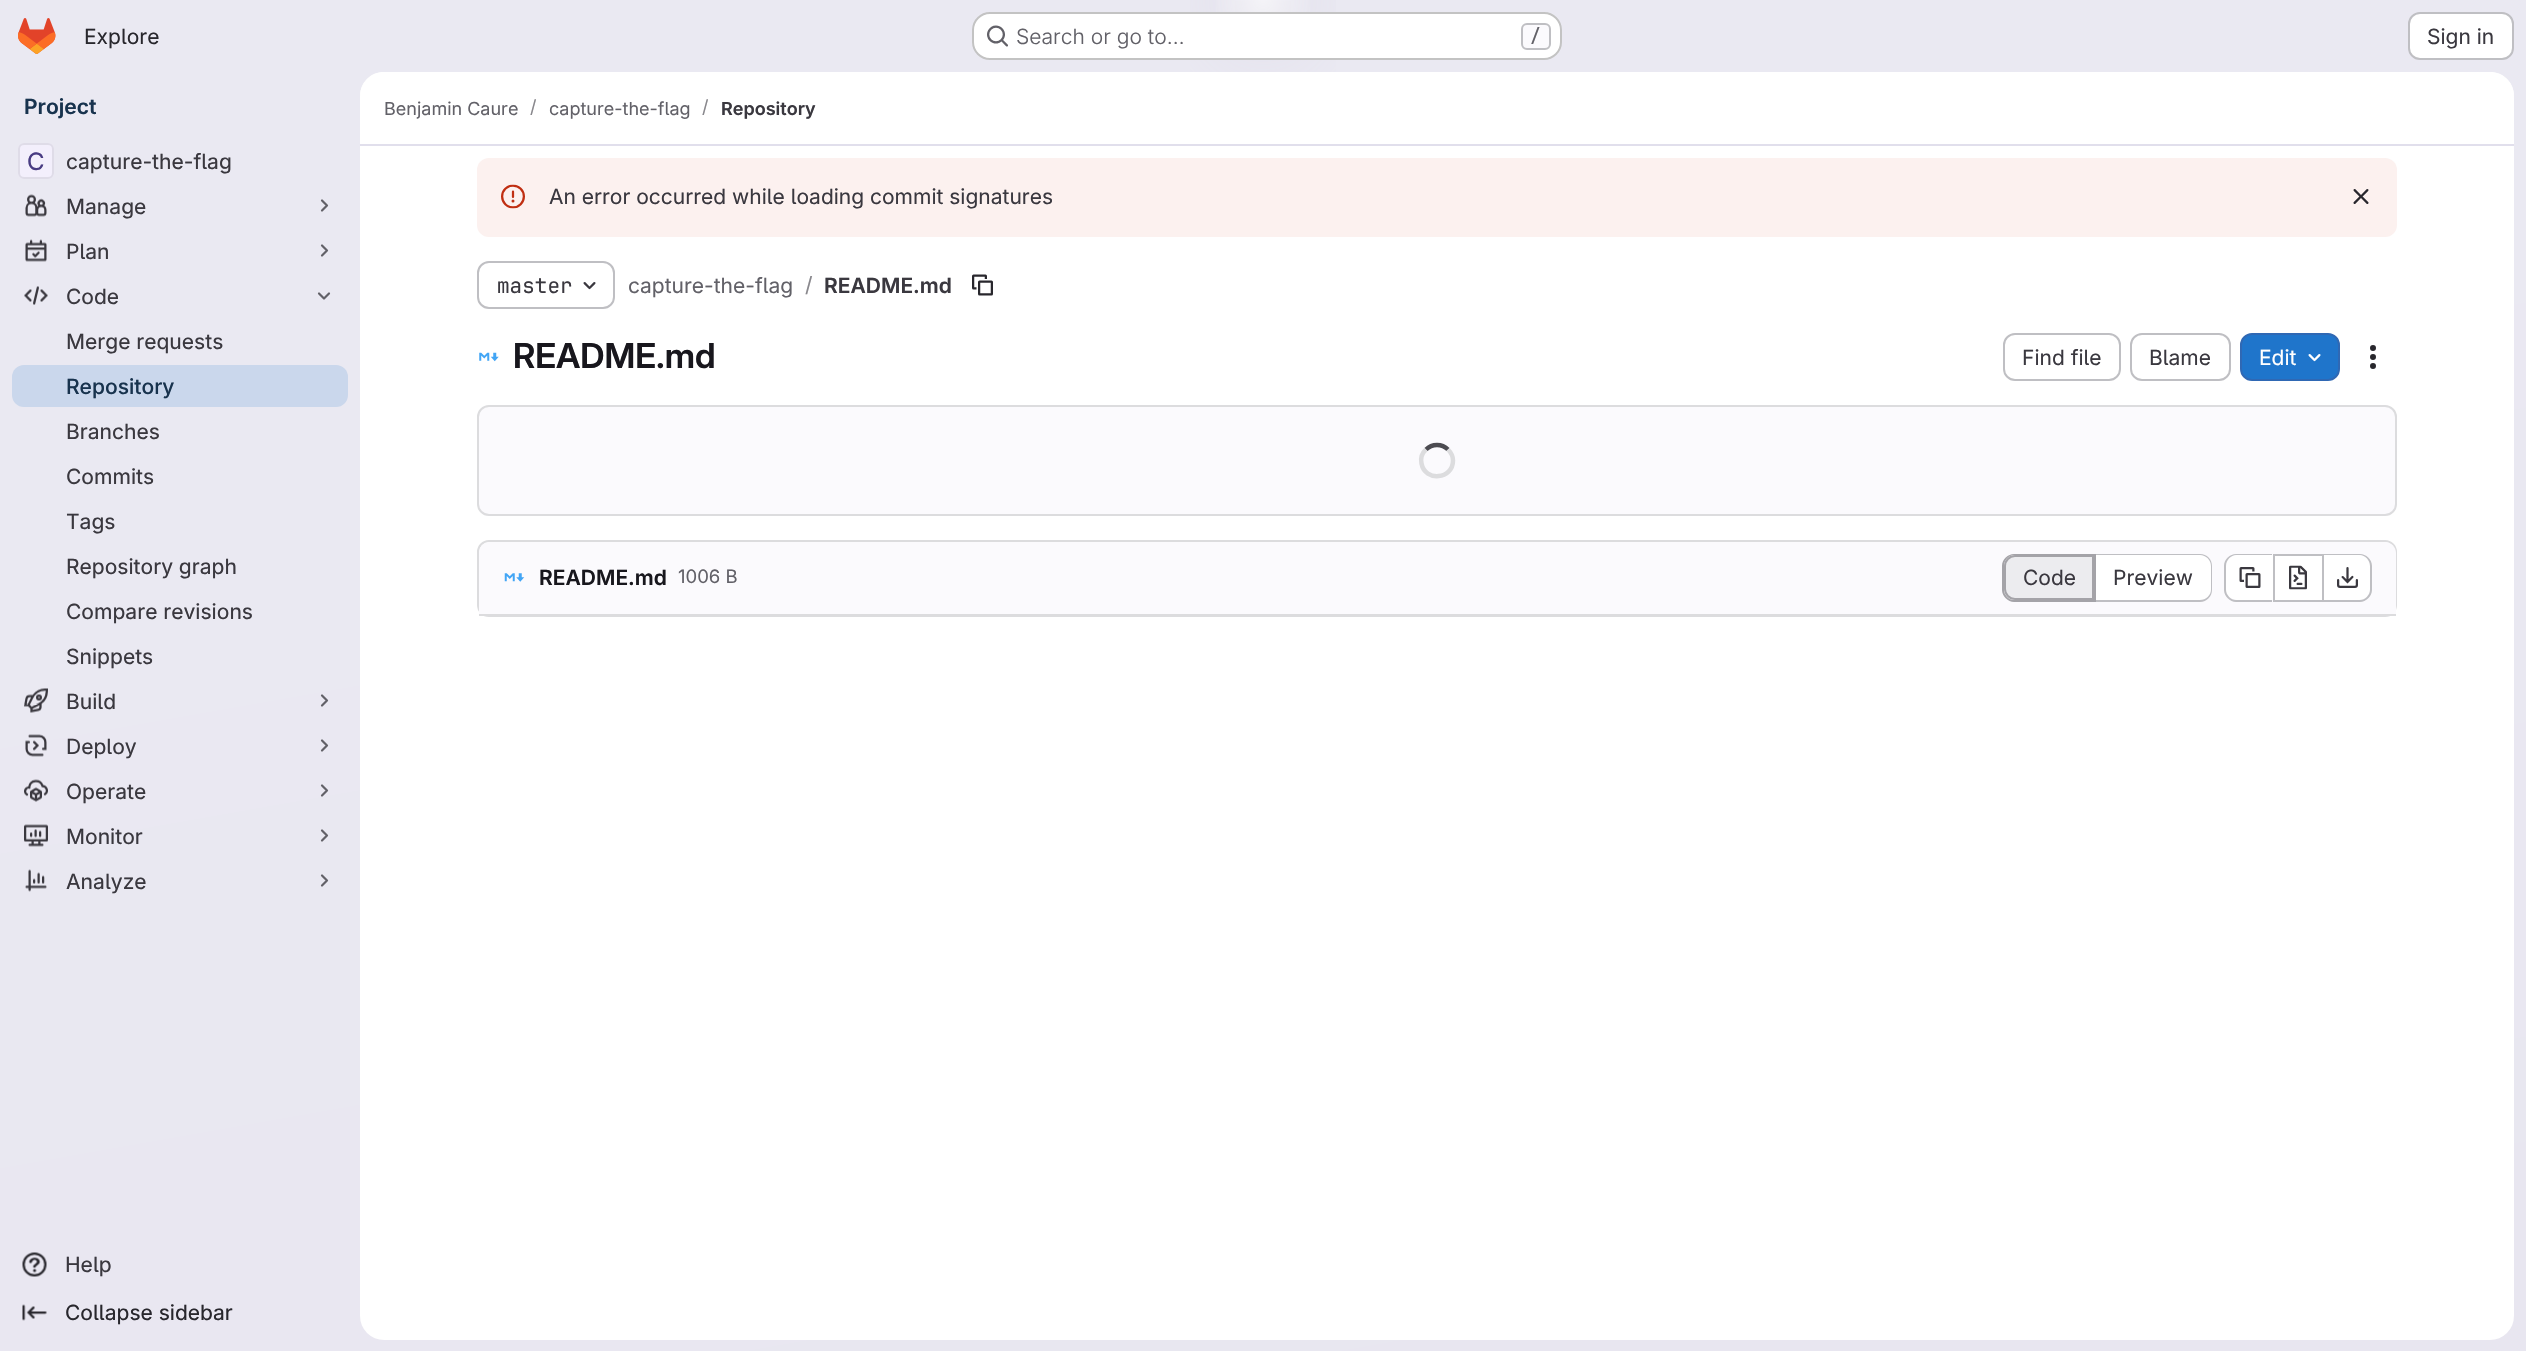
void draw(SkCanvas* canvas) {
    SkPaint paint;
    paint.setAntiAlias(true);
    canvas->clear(0xFFFFFFFF);
    {
        const SkColor colors[] = {0xFFE8E6F0, 0xFFEAE9F2};
        const float stops[] = {0, 0.7f};
        const SkPoint ends[] = {{1417, 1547}, {1109, -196}};
        paint.setShader(SkGradientShader::MakeLinear(ends, colors, stops, 2, SkTileMode::kClamp));
        paint.setAlpha(255);
    }
    canvas->drawRect(SkRect::MakeXYWH(0, 0, 2526, 1351), paint);
    {
        const SkColor colors[] = {0xFFE4E2ED, 0x00E4E2ED};
        const float stops[] = {0, 0.08f};
        SkMatrix m = SkMatrix::Translate(1263, 0).preScale(1263, 1352);
        paint.setShader(SkGradientShader::MakeRadial({0, 0}, 1, colors, stops, 2, SkTileMode::kClamp, 0, &m));
        paint.setAlpha(255);
    }
    canvas->drawRect(SkRect::MakeXYWH(1190, 0, 146, 72), paint);
    {
        const SkColor colors[] = {0xFFE4E2EC, 0x00E4E2EC};
        const float stops[] = {0, 0.06f};
        SkMatrix m = SkMatrix::Translate(1263, 0).preScale(1263, 1352);
        paint.setShader(SkGradientShader::MakeRadial({0, 0}, 1, colors, stops, 2, SkTileMode::kClamp, 0, &m));
        paint.setAlpha(255);
    }
    canvas->drawRect(SkRect::MakeXYWH(1235, 1, 56, 22), paint);
    {
        const SkColor colors[] = {0x99FFFFFF, 0x00FFFFFF};
        const float stops[] = {0, 0.03f};
        paint.setShader(SkGradientShader::MakeRadial({1263, 0}, 1850, colors, stops, 2, SkTileMode::kClamp));
        paint.setAlpha(255);
    }
    canvas->drawRect(SkRect::MakeXYWH(1216, 0, 94, 12), paint);
    canvas->drawImageRect(SkImages::DeferredFromEncodedData(SkData::MakeFromFileName("img1.png")), SkRect::MakeXYWH(18, 18, 38, 36), SkSamplingOptions());
    SkFont font1(fontMgr->matchFamilyStyle("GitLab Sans", SkFontStyle::Normal()), 21);
    font1.setSubpixel(true);
    paint.setShader(nullptr);
    paint.setColor(0xFF28272D);
    canvas->drawString("Explore", 84, 44, font1, paint);
    paint.setColor(0xFFFFFFFF);
    canvas->drawRoundRect(SkRect::MakeXYWH(972, 12, 590, 48), 18, 18, paint);
    paint.setStyle(SkPaint::kStroke_Style);
    paint.setStrokeWidth(2);
    paint.setColor(0x3D050506);
    canvas->drawRoundRect(SkRect::MakeXYWH(973, 13, 588, 46), 17, 17, paint);
    canvas->drawImageRect(SkImages::DeferredFromEncodedData(SkData::MakeFromFileName("img2.png")), SkRect::MakeXYWH(987, 25, 21, 22), SkSamplingOptions());
    SkFont font2(fontMgr->matchFamilyStyle("GitLab Sans", SkFontStyle(300, SkFontStyle::kNormal_Width, SkFontStyle::kUpright_Slant)), 21);
    font2.setSubpixel(true);
    paint.setStyle(SkPaint::kFill_Style);
    paint.setColor(0xFF626168);
    canvas->drawString("Search or go to…", 1016, 44, font2, paint);
    paint.setColor(0xFFFBFAFD);
    canvas->drawRoundRect(SkRect::MakeXYWH(1522, 24, 28, 25), 5, 5, paint);
    paint.setStyle(SkPaint::kStroke_Style);
    paint.setColor(0xFFBFBFC3);
    canvas->drawRoundRect(SkRect::MakeXYWH(1522, 24, 28, 25), 5, 5, paint);
    SkFont font3(fontMgr->matchFamilyStyle("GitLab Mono", SkFontStyle(500, SkFontStyle::kNormal_Width, SkFontStyle::kUpright_Slant)), 18);
    font3.setSubpixel(true);
    paint.setStyle(SkPaint::kFill_Style);
    paint.setColor(0xFF626168);
    canvas->drawString("/", 1530, 42, font3, paint);
    paint.setColor(0xFFFFFFFF);
    canvas->drawRoundRect(SkRect::MakeXYWH(2409, 13, 104, 46), 11, 11, paint);
    paint.setStyle(SkPaint::kStroke_Style);
    paint.setColor(0xFFBFBFC3);
    canvas->drawRoundRect(SkRect::MakeXYWH(2409, 13, 104, 46), 11, 11, paint);
    paint.setStyle(SkPaint::kFill_Style);
    paint.setColor(0xFF3A383F);
    canvas->drawString("Sign in", 2427, 44, font1, paint);
    SkFont font4(fontMgr->matchFamilyStyle("GitLab Sans", SkFontStyle(600, SkFontStyle::kNormal_Width, SkFontStyle::kUpright_Slant)), 21);
    font4.setSubpixel(true);
    paint.setColor(0xFF18334E);
    canvas->drawString("Project", 24, 114, font4, paint);
    paint.setColor(0xFFFFFFFF);
    canvas->drawRoundRect(SkRect::MakeXYWH(18, 143, 36, 36), 6, 6, paint);
    paint.setColor(0x3DCBBBF2);
    canvas->drawRoundRect(SkRect::MakeXYWH(18, 143, 36, 36), 6, 6, paint);
    paint.setStyle(SkPaint::kStroke_Style);
    paint.setColor(0xFFDFDCE8);
    canvas->drawRoundRect(SkRect::MakeXYWH(19, 144, 34, 34), 5, 5, paint);
    SkFont font5(fontMgr->matchFamilyStyle("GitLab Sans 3", SkFontStyle::Normal()), 24);
    font5.setSubpixel(true);
    paint.setStyle(SkPaint::kFill_Style);
    paint.setColor(0xFF493C83);
    canvas->drawString("C", 27, 170, font5, paint);
    SkFont font6(fontMgr->matchFamilyStyle("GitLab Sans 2", SkFontStyle::Normal()), 21);
    font6.setSubpixel(true);
    paint.setColor(0xFF3A383F);
    canvas->drawString("capture-the-flag", 66, 169, font6, paint);
    canvas->drawImageRect(SkImages::DeferredFromEncodedData(SkData::MakeFromFileName("img3.png")), SkRect::MakeXYWH(25, 194, 22, 23), SkSamplingOptions());
    canvas->drawString("Manage", 66, 214, font6, paint);
    paint.setStyle(SkPaint::kStroke_Style);
    paint.setStrokeWidth(2.2f);
    paint.setStrokeCap(SkPaint::kRound_Cap);
    paint.setStrokeJoin(SkPaint::kRound_Join);
    paint.setColor(0xFF626168);
    canvas->drawPath(SkPathBuilder().moveTo(322, 200.5f).lineTo(327, 205.5f).lineTo(322, 210.5f).detach(), paint);
    canvas->drawImageRect(SkImages::DeferredFromEncodedData(SkData::MakeFromFileName("img4.png")), SkRect::MakeXYWH(25, 239, 22, 23), SkSamplingOptions());
    paint.setStyle(SkPaint::kFill_Style);
    paint.setColor(0xFF3A383F);
    canvas->drawString("Plan", 66, 259, font6, paint);
    paint.setStyle(SkPaint::kStroke_Style);
    paint.setColor(0xFF626168);
    canvas->drawPath(SkPathBuilder().moveTo(322, 245.5f).lineTo(327, 250.5f).lineTo(322, 255.5f).detach(), paint);
    canvas->drawImageRect(SkImages::DeferredFromEncodedData(SkData::MakeFromFileName("img5.png")), SkRect::MakeXYWH(24, 286, 24, 19), SkSamplingOptions());
    paint.setStyle(SkPaint::kFill_Style);
    paint.setColor(0xFF3A383F);
    canvas->drawString("Code", 66, 304, font6, paint);
    paint.setStyle(SkPaint::kStroke_Style);
    paint.setColor(0xFF626168);
    canvas->drawPath(SkPathBuilder().moveTo(329, 293.5f).lineTo(324, 298.5f).lineTo(319, 293.5f).detach(), paint);
    paint.setStyle(SkPaint::kFill_Style);
    paint.setColor(0xFF3A383F);
    canvas->drawString("Merge requests", 66, 349, font6, paint);
    paint.setColor(0xFFCAD7EC);
    canvas->drawRoundRect(SkRect::MakeXYWH(12, 365, 336, 42), 12, 12, paint);
    SkFont font7(fontMgr->matchFamilyStyle("GitLab Sans", SkFontStyle(500, SkFontStyle::kNormal_Width, SkFontStyle::kUpright_Slant)), 21);
    font7.setSubpixel(true);
    paint.setColor(0xFF18334E);
    canvas->drawString("Repository", 66, 394, font7, paint);
    paint.setColor(0xFF3A383F);
    canvas->drawString("Branches", 66, 439, font6, paint);
    canvas->drawString("Commits", 66, 484, font6, paint);
    canvas->drawString("Tags", 66, 529, font6, paint);
    canvas->drawString("Repository graph", 66, 574, font6, paint);
    canvas->drawString("Compare revisions", 66, 619, font6, paint);
    canvas->drawString("Snippets", 66, 664, font6, paint);
    canvas->drawImageRect(SkImages::DeferredFromEncodedData(SkData::MakeFromFileName("img6.png")), SkRect::MakeXYWH(24, 688, 24, 25), SkSamplingOptions());
    canvas->drawString("Build", 66, 709, font6, paint);
    paint.setStyle(SkPaint::kStroke_Style);
    paint.setColor(0xFF626168);
    canvas->drawPath(SkPathBuilder().moveTo(322, 695.5f).lineTo(327, 700.5f).lineTo(322, 705.5f).detach(), paint);
    canvas->drawImageRect(SkImages::DeferredFromEncodedData(SkData::MakeFromFileName("img7.png")), SkRect::MakeXYWH(25, 734, 22, 23), SkSamplingOptions());
    paint.setStyle(SkPaint::kFill_Style);
    paint.setColor(0xFF3A383F);
    canvas->drawString("Deploy", 66, 754, font6, paint);
    paint.setStyle(SkPaint::kStroke_Style);
    paint.setColor(0xFF626168);
    canvas->drawPath(SkPathBuilder().moveTo(322, 740.5f).lineTo(327, 745.5f).lineTo(322, 750.5f).detach(), paint);
    canvas->drawImageRect(SkImages::DeferredFromEncodedData(SkData::MakeFromFileName("img8.png")), SkRect::MakeXYWH(24, 779, 24, 23), SkSamplingOptions());
    paint.setStyle(SkPaint::kFill_Style);
    paint.setColor(0xFF3A383F);
    canvas->drawString("Operate", 66, 799, font6, paint);
    paint.setStyle(SkPaint::kStroke_Style);
    paint.setColor(0xFF626168);
    canvas->drawPath(SkPathBuilder().moveTo(322, 785.5f).lineTo(327, 790.5f).lineTo(322, 795.5f).detach(), paint);
    canvas->drawImageRect(SkImages::DeferredFromEncodedData(SkData::MakeFromFileName("img9.png")), SkRect::MakeXYWH(24, 824, 24, 23), SkSamplingOptions());
    paint.setStyle(SkPaint::kFill_Style);
    paint.setColor(0xFF3A383F);
    canvas->drawString("Monitor", 66, 844, font6, paint);
    paint.setStyle(SkPaint::kStroke_Style);
    paint.setColor(0xFF626168);
    canvas->drawPath(SkPathBuilder().moveTo(322, 830.5f).lineTo(327, 835.5f).lineTo(322, 840.5f).detach(), paint);
    canvas->drawImageRect(SkImages::DeferredFromEncodedData(SkData::MakeFromFileName("img10.png")), SkRect::MakeXYWH(25, 869, 22, 23), SkSamplingOptions());
    paint.setStyle(SkPaint::kFill_Style);
    paint.setColor(0xFF3A383F);
    canvas->drawString("Analyze", 66, 889, font6, paint);
    paint.setStyle(SkPaint::kStroke_Style);
    paint.setColor(0xFF626168);
    canvas->drawPath(SkPathBuilder().moveTo(322, 875.5f).lineTo(327, 880.5f).lineTo(322, 885.5f).detach(), paint);
    canvas->drawImageRect(SkImages::DeferredFromEncodedData(SkData::MakeFromFileName("img11.png")), SkRect::MakeXYWH(22, 1252, 25, 25), SkSamplingOptions());
    paint.setStyle(SkPaint::kFill_Style);
    paint.setColor(0xFF3A383F);
    canvas->drawString("Help", 65, 1272, font6, paint);
    canvas->drawImageRect(SkImages::DeferredFromEncodedData(SkData::MakeFromFileName("img12.png")), SkRect::MakeXYWH(22, 1304, 25, 17), SkSamplingOptions());
    paint.setColor(0xFF28272D);
    canvas->drawString("Collapse sidebar", 65, 1320, font6, paint);
    paint.setColor(0xFFFFFFFF);
    canvas->drawRoundRect(SkRect::MakeXYWH(360, 72, 2154, 1268), 24, 24, paint);
    canvas->drawPath(SkPathBuilder().moveTo(384, 72).lineTo(2490, 72).cubicTo(2503.5f, 72, 2514, 82.5f, 2514, 96).lineTo(2514, 146).lineTo(360, 146).lineTo(360, 96).cubicTo(360, 82.5f, 370.5f, 72, 384, 72).close().detach(), paint);
    paint.setColor(0xFFE1DFEC);
    canvas->drawRect(SkRect::MakeXYWH(360, 144, 2154, 2), paint);
    SkFont font8(fontMgr->matchFamilyStyle("GitLab Sans", SkFontStyle::Normal()), 18);
    font8.setSubpixel(true);
    paint.setColor(0xFF626168);
    canvas->drawString("Benjamin Caure", 384, 115, font8, paint);
    paint.setColor(0xFF89888D);
    canvas->drawString("/", 530, 113, font8, paint);
    paint.setColor(0xFF626168);
    canvas->drawString("capture-the-flag", 549, 115, font8, paint);
    paint.setColor(0xFF89888D);
    canvas->drawString("/", 702, 113, font8, paint);
    SkFont font9(fontMgr->matchFamilyStyle("GitLab Sans", SkFontStyle(600, SkFontStyle::kNormal_Width, SkFontStyle::kUpright_Slant)), 18);
    font9.setSubpixel(true);
    paint.setColor(0xFF3A383F);
    canvas->drawString("Repository", 721, 115, font9, paint);
    paint.setColor(0xFFFCF1EF);
    canvas->drawRoundRect(SkRect::MakeXYWH(477, 158, 1920, 79), 12, 12, paint);
    canvas->drawImageRect(SkImages::DeferredFromEncodedData(SkData::MakeFromFileName("img13.png")), SkRect::MakeXYWH(501, 184, 24, 25), SkSamplingOptions());
    paint.setColor(0xFF3A383F);
    canvas->drawString("An error occurred while loading commit signatures", 549, 204, font1, paint);
    canvas->drawImageRect(SkImages::DeferredFromEncodedData(SkData::MakeFromFileName("img14.png")), SkRect::MakeXYWH(2353, 189, 16, 15), SkSamplingOptions());
    paint.setStyle(SkPaint::kStroke_Style);
    paint.setStrokeWidth(2);
    paint.setStrokeCap(SkPaint::kButt_Cap);
    paint.setStrokeJoin(SkPaint::kMiter_Join);
    paint.setColor(0xFFBFBFC3);
    canvas->drawRoundRect(SkRect::MakeXYWH(478, 262, 136, 46), 11, 11, paint);
    SkFont font10(fontMgr->matchFamilyStyle("GitLab Mono", SkFontStyle::Normal()), 21);
    font10.setSubpixel(true);
    paint.setStyle(SkPaint::kFill_Style);
    paint.setColor(0xFF3A383F);
    canvas->drawString("master", 497, 293, font10, paint);
    canvas->drawImageRect(SkImages::DeferredFromEncodedData(SkData::MakeFromFileName("img15.png")), SkRect::MakeXYWH(583, 282, 13, 8), SkSamplingOptions());
    paint.setColor(0xFF626168);
    canvas->drawString("capture-the-flag", 628, 293, font1, paint);
    paint.setColor(0xFF89888D);
    canvas->drawString("/", 805, 292, font1, paint);
    paint.setColor(0xFF3A383F);
    canvas->drawString("README.md", 824, 293, font4, paint);
    canvas->drawImageRect(SkImages::DeferredFromEncodedData(SkData::MakeFromFileName("img16.png")), SkRect::MakeXYWH(972, 274, 21, 22), SkSamplingOptions());
    canvas->drawImageRect(SkImages::DeferredFromEncodedData(SkData::MakeFromFileName("img17.png")), SkRect::MakeXYWH(479, 352, 20, 10), SkSamplingOptions());
    SkFont font11(fontMgr->matchFamilyStyle("GitLab Sans 2", SkFontStyle(600, SkFontStyle::kNormal_Width, SkFontStyle::kUpright_Slant)), 34.5f);
    font11.setSubpixel(true);
    paint.setColor(0xFF18171D);
    canvas->drawString("README.md", 513, 368, font11, paint);
    paint.setStyle(SkPaint::kStroke_Style);
    paint.setColor(0xFFBFBFC3);
    canvas->drawRoundRect(SkRect::MakeXYWH(2004, 334, 116, 46), 11, 11, paint);
    paint.setStyle(SkPaint::kFill_Style);
    paint.setColor(0xFF3A383F);
    canvas->drawString("Find file", 2022, 365, font1, paint);
    paint.setStyle(SkPaint::kStroke_Style);
    paint.setColor(0xFFBFBFC3);
    canvas->drawRoundRect(SkRect::MakeXYWH(2131, 334, 99, 46), 11, 11, paint);
    paint.setStyle(SkPaint::kFill_Style);
    paint.setColor(0xFF3A383F);
    canvas->drawString("Blame", 2149, 365, font1, paint);
    paint.setColor(0xFF1F75CB);
    canvas->drawRoundRect(SkRect::MakeXYWH(2241, 334, 98, 46), 11, 11, paint);
    paint.setStyle(SkPaint::kStroke_Style);
    paint.setColor(0xFF2F68B4);
    canvas->drawRoundRect(SkRect::MakeXYWH(2241, 334, 98, 46), 11, 11, paint);
    paint.setStyle(SkPaint::kFill_Style);
    paint.setColor(0xFFFFFFFF);
    canvas->drawString("Edit", 2259, 365, font1, paint);
    canvas->drawImageRect(SkImages::DeferredFromEncodedData(SkData::MakeFromFileName("img18.png")), SkRect::MakeXYWH(2308, 354, 13, 8), SkSamplingOptions());
    canvas->drawImageRect(SkImages::DeferredFromEncodedData(SkData::MakeFromFileName("img19.png")), SkRect::MakeXYWH(2370, 345, 6, 24), SkSamplingOptions());
    paint.setColor(0xFFFBFAFD);
    canvas->drawRoundRect(SkRect::MakeXYWH(478, 406, 1918, 109), 11, 11, paint);
    paint.setStyle(SkPaint::kStroke_Style);
    paint.setColor(0xFFDCDCDE);
    canvas->drawRoundRect(SkRect::MakeXYWH(478, 406, 1918, 109), 11, 11, paint);
    paint.setStrokeWidth(4.5f);
    paint.setColor(0xFF4C4B51);
    canvas->drawPath(SkPathBuilder().moveTo(1426, 449.5f).cubicTo(1432, 443.5f, 1442, 443.5f, 1448, 449.5f).detach(), paint);
    paint.setColor(0xFFDCDCDE);
    canvas->drawPath(SkPathBuilder().moveTo(1448, 449.5f).cubicTo(1451, 452.5f, 1453, 456.5f, 1453, 460.5f).cubicTo(1453, 479.5f, 1425, 482, 1421.5f, 463.5f).cubicTo(1420.5f, 458.5f, 1422, 453, 1426, 449.5f).detach(), paint);
    paint.setStrokeWidth(2);
    canvas->drawRoundRect(SkRect::MakeXYWH(478, 541, 1918, 75), 11, 11, paint);
    paint.setStyle(SkPaint::kFill_Style);
    paint.setColor(0xFFFBFAFD);
    canvas->drawPath(SkPathBuilder().moveTo(490, 542).lineTo(2385, 542).cubicTo(2391, 542, 2396, 547, 2396, 553).lineTo(2396, 615).lineTo(479, 615).lineTo(479, 553).cubicTo(479, 547, 484, 542, 490, 542).close().detach(), paint);
    paint.setColor(0xFFDCDCDE);
    canvas->drawRect(SkRect::MakeXYWH(479, 614, 1917, 2), paint);
    canvas->drawImageRect(SkImages::DeferredFromEncodedData(SkData::MakeFromFileName("img20.png")), SkRect::MakeXYWH(504, 573, 21, 9), SkSamplingOptions());
    paint.setColor(0xFF18171D);
    canvas->drawString("README.md", 539, 585, font4, paint);
    SkFont font12(fontMgr->matchFamilyStyle("GitLab Sans", SkFontStyle::Normal()), 18.5f);
    font12.setSubpixel(true);
    paint.setColor(0xFF626168);
    canvas->drawString("1006 B", 678, 583, font12, paint);
    paint.setColor(0xFFECECEF);
    canvas->drawPath(SkPathBuilder().moveTo(2015, 556).lineTo(2093, 556).lineTo(2093, 599).lineTo(2015, 599).cubicTo(2009.5f, 599, 2005, 594.5f, 2005, 589).lineTo(2005, 566).cubicTo(2005, 560.5f, 2009.5f, 556, 2015, 556).close().detach(), paint);
    paint.setStyle(SkPaint::kStroke_Style);
    paint.setColor(0xFFA4A3A8);
    canvas->drawPath(SkPathBuilder().moveTo(2015, 556).lineTo(2093, 556).lineTo(2093, 599).lineTo(2015, 599).cubicTo(2009.5f, 599, 2005, 594.5f, 2005, 589).lineTo(2005, 566).cubicTo(2005, 560.5f, 2009.5f, 556, 2015, 556).close().detach(), paint);
    paint.setStyle(SkPaint::kFill_Style);
    canvas->drawPath(SkPathBuilder(SkPathFillType::kEvenOdd).moveTo(2014, 554).lineTo(2094, 554).lineTo(2094, 602).lineTo(2014, 602).cubicTo(2008, 602, 2002, 596, 2002, 590).lineTo(2002, 566).cubicTo(2002, 559, 2008, 554, 2014, 554).close().moveTo(2014, 555).lineTo(2094, 555).lineTo(2094, 600).lineTo(2014, 600).cubicTo(2009, 600, 2004, 595, 2004, 590).lineTo(2004, 566).cubicTo(2004, 560, 2009, 555, 2014, 555).close().detach(), paint);
    paint.setColor(0xFF3A383F);
    canvas->drawString("Code", 2023, 585, font1, paint);
    paint.setColor(0xFFFFFFFF);
    canvas->drawPath(SkPathBuilder().moveTo(2096, 555).lineTo(2200, 555).cubicTo(2206, 555, 2211, 560, 2211, 566).lineTo(2211, 589).cubicTo(2211, 595, 2206, 600, 2200, 600).lineTo(2096, 600).close().detach(), paint);
    paint.setColor(0xFFBFBFC3);
    canvas->drawPath(SkPathBuilder(SkPathFillType::kEvenOdd).moveTo(2096, 554).lineTo(2200, 554).cubicTo(2207, 554, 2212, 559, 2212, 566).lineTo(2212, 590).cubicTo(2212, 596, 2207, 602, 2200, 602).lineTo(2096, 602).close().moveTo(2096, 555).lineTo(2200, 555).cubicTo(2206, 555, 2211, 560, 2211, 566).lineTo(2211, 590).cubicTo(2211, 595, 2206, 600, 2200, 600).lineTo(2096, 600).close().detach(), paint);
    paint.setColor(0xFFA4A3A8);
    canvas->drawRect(SkRect::MakeXYWH(2094, 554, 2, 48), paint);
    paint.setColor(0xFF3A383F);
    canvas->drawString("Preview", 2113, 585, font1, paint);
    paint.setColor(0xFFFFFFFF);
    canvas->drawPath(SkPathBuilder().moveTo(2237, 555).lineTo(2273, 555).lineTo(2273, 600).lineTo(2237, 600).cubicTo(2231, 600, 2226, 595, 2226, 589).lineTo(2226, 566).cubicTo(2226, 560, 2231, 555, 2237, 555).close().detach(), paint);
    paint.setColor(0xFFBFBFC3);
    canvas->drawPath(SkPathBuilder(SkPathFillType::kEvenOdd).moveTo(2236, 554).lineTo(2272, 554).lineTo(2272, 602).lineTo(2236, 602).cubicTo(2230, 602, 2224, 596, 2224, 590).lineTo(2224, 566).cubicTo(2224, 559, 2230, 554, 2236, 554).close().moveTo(2236, 555).lineTo(2272, 555).lineTo(2272, 600).lineTo(2236, 600).cubicTo(2231, 600, 2226, 595, 2226, 590).lineTo(2226, 566).cubicTo(2226, 560, 2231, 555, 2236, 555).close().detach(), paint);
    canvas->drawImageRect(SkImages::DeferredFromEncodedData(SkData::MakeFromFileName("img21.png")), SkRect::MakeXYWH(2239, 567, 22, 21), SkSamplingOptions());
    paint.setColor(0xFFFFFFFF);
    canvas->drawRect(SkRect::MakeXYWH(2275, 556, 47, 44), paint);
    paint.setColor(0xFFBFBFC3);
    canvas->drawRect(SkRect::MakeXYWH(2274, 554, 48, 2), paint);
    canvas->drawRect(SkRect::MakeXYWH(2274, 600, 48, 2), paint);
    canvas->drawRect(SkRect::MakeXYWH(2273, 554, 2, 48), paint);
    canvas->drawImageRect(SkImages::DeferredFromEncodedData(SkData::MakeFromFileName("img22.png")), SkRect::MakeXYWH(2289, 565, 18, 25), SkSamplingOptions());
    paint.setColor(0xFFFFFFFF);
    canvas->drawPath(SkPathBuilder().moveTo(2324, 555).lineTo(2359, 555).cubicTo(2365, 555, 2370, 560, 2370, 566).lineTo(2370, 589).cubicTo(2370, 595, 2365, 600, 2359, 600).lineTo(2324, 600).close().detach(), paint);
    paint.setColor(0xFFBFBFC3);
    canvas->drawPath(SkPathBuilder(SkPathFillType::kEvenOdd).moveTo(2324, 554).lineTo(2360, 554).cubicTo(2366, 554, 2372, 559, 2372, 566).lineTo(2372, 590).cubicTo(2372, 596, 2366, 602, 2360, 602).lineTo(2324, 602).close().moveTo(2324, 555).lineTo(2360, 555).cubicTo(2365, 555, 2370, 560, 2370, 566).lineTo(2370, 590).cubicTo(2370, 595, 2365, 600, 2360, 600).lineTo(2324, 600).close().detach(), paint);
    canvas->drawRect(SkRect::MakeXYWH(2322, 554, 2, 48), paint);
    canvas->drawImageRect(SkImages::DeferredFromEncodedData(SkData::MakeFromFileName("img23.png")), SkRect::MakeXYWH(2337, 567, 21, 21), SkSamplingOptions());
}
